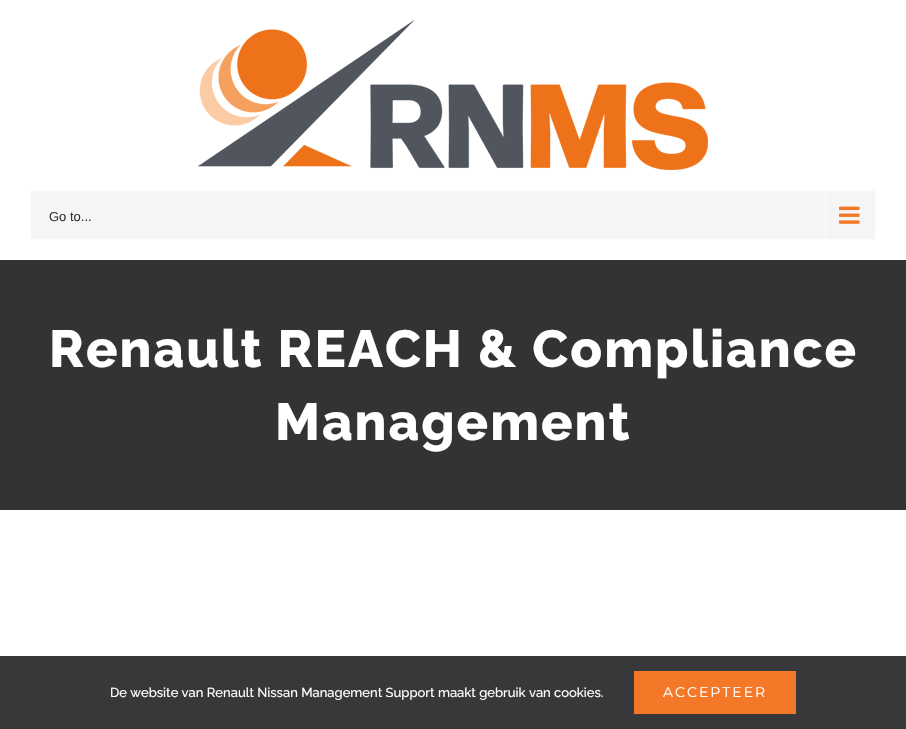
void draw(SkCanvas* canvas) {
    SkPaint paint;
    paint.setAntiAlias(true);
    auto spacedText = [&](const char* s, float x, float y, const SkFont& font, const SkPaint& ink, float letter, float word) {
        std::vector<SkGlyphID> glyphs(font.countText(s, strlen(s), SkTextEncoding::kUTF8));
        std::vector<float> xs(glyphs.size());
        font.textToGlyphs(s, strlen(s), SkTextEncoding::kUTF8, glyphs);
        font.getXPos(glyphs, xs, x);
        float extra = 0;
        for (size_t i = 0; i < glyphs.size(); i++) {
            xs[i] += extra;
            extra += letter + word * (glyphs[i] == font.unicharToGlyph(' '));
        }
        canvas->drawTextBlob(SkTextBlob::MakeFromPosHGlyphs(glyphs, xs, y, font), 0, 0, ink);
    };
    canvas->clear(0xFFFFFFFF);
    canvas->drawImageRect(SkImages::DeferredFromEncodedData(SkData::MakeFromFileName("img1.png")), SkRect::MakeXYWH(198, 20, 510, 150), SkSamplingOptions());
    paint.setColor(0xFFF5F5F5);
    canvas->drawRect(SkRect::MakeXYWH(30.5f, 190.5f, 845, 49), paint);
    paint.setStyle(SkPaint::kStroke_Style);
    paint.setStrokeWidth(1);
    paint.setColor(0xFFFCFCFC);
    canvas->drawRect(SkRect::MakeXYWH(30.5f, 190.5f, 845, 49), paint);
    SkFont font1(fontMgr->matchFamilyStyle("Liberation Sans", SkFontStyle::Normal()), 13);
    font1.setSubpixel(true);
    paint.setStyle(SkPaint::kFill_Style);
    paint.setColor(0xFF333333);
    canvas->drawString("Go to...", 49, 221, font1, paint);
    paint.setColor(0xFFFCFCFC);
    canvas->drawRect(SkRect::MakeXYWH(825, 191, 1, 48), paint);
    canvas->drawImageRect(SkImages::DeferredFromEncodedData(SkData::MakeFromFileName("img2.png")), SkRect::MakeXYWH(839, 206, 21, 18), SkSamplingOptions());
    paint.setColor(0xFF333333);
    canvas->drawRect(SkRect::MakeXYWH(0, 260, 906, 250), paint);
    SkFont font2(fontMgr->matchFamilyStyle("Raleway", SkFontStyle(800, SkFontStyle::kNormal_Width, SkFontStyle::kUpright_Slant)), 52.25f);
    font2.setSubpixel(true);
    paint.setColor(0xFFFFFFFF);
    spacedText("Renault REACH & Compliance", 49, 367, font2, paint, 2, 0);
    spacedText("Management", 275, 440, font2, paint, 2, 0);
    paint.setColor(0xFF363839);
    canvas->drawRect(SkRect::MakeXYWH(0, 656, 906, 73), paint);
    SkFont font3(fontMgr->matchFamilyStyle("Raleway", SkFontStyle(500, SkFontStyle::kNormal_Width, SkFontStyle::kUpright_Slant)), 13);
    font3.setSubpixel(true);
    paint.setColor(0xFFFFFFFF);
    canvas->drawString("De website van Renault Nissan Management Support maakt gebruik van cookies.", 110, 697, font3, paint);
    paint.setColor(0xFFF37928);
    canvas->drawRect(SkRect::MakeXYWH(634, 671, 162, 43), paint);
    SkFont font4(fontMgr->matchFamilyStyle("Montserrat", SkFontStyle::Normal()), 14);
    font4.setSubpixel(true);
    paint.setColor(0xFFFFFFFF);
    spacedText("ACCEPTEER", 663, 697, font4, paint, 2, 0);
}
